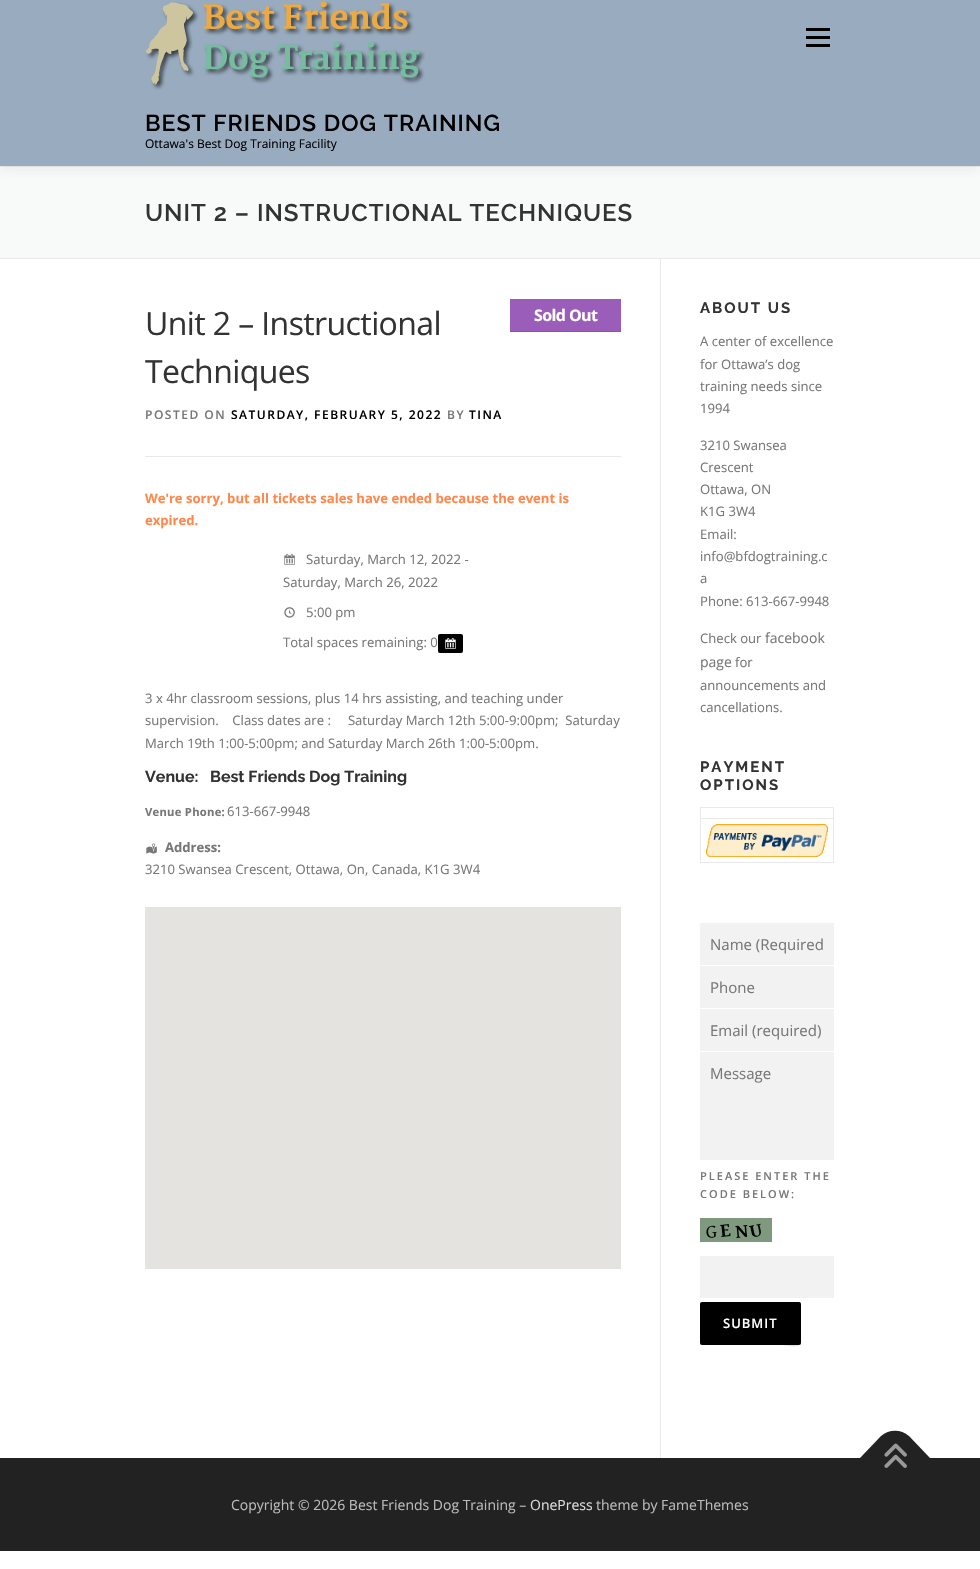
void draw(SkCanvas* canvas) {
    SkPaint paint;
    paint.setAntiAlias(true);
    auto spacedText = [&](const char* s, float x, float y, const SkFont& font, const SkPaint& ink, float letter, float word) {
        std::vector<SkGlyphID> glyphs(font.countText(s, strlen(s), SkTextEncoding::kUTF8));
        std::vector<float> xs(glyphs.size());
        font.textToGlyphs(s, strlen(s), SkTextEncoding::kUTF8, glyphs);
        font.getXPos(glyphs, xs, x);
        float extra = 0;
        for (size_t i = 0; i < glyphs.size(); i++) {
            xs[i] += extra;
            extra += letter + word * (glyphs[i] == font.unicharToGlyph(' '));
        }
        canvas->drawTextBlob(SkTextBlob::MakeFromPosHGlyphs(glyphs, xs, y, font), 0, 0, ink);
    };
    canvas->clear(0xFFFFFFFF);
    paint.setColor(0xFFF8F9F9);
    canvas->drawRect(SkRect::MakeXYWH(0, 167, 980, 91), paint);
    paint.setColor(0xFFE9E9E9);
    canvas->drawRect(SkRect::MakeXYWH(0, 166, 980, 1), paint);
    paint.setColor(0x0F323232);
    paint.setMaskFilter(SkMaskFilter::MakeBlur(kNormal_SkBlurStyle, 5));
    canvas->drawRect(SkRect::MakeXYWH(0, 5, 980, 166), paint);
    paint.setMaskFilter(nullptr);
    paint.setColor(0xFF99ACBF);
    canvas->drawRect(SkRect::MakeXYWH(0, 0, 980, 166), paint);
    paint.setColor(0xFF000000);
    canvas->drawRect(SkRect::MakeXYWH(806, 36, 24, 3), paint);
    canvas->drawRect(SkRect::MakeXYWH(806, 28, 24, 3), paint);
    canvas->drawRect(SkRect::MakeXYWH(806, 44, 24, 3), paint);
    canvas->drawImageRect(SkImages::DeferredFromEncodedData(SkData::MakeFromFileName("img1.png")), SkRect::MakeXYWH(146, 1, 279, 89), SkSamplingOptions());
    SkFont font1(fontMgr->matchFamilyStyle("Raleway", SkFontStyle(600, SkFontStyle::kNormal_Width, SkFontStyle::kUpright_Slant)), 23);
    font1.setSubpixel(true);
    spacedText("BEST FRIENDS DOG TRAINING", 145, 131, font1, paint, 1, 0);
    SkFont font2(fontMgr->matchFamilyStyle("Open Sans", SkFontStyle::Normal()), 12);
    font2.setSubpixel(true);
    canvas->drawString("Ottawa's Best Dog Training Facility", 145, 148, font2, paint);
    paint.setColor(0xFFE9E9E9);
    canvas->drawRect(SkRect::MakeXYWH(0, 258, 980, 1), paint);
    SkFont font3(fontMgr->matchFamilyStyle("Raleway", SkFontStyle(600, SkFontStyle::kNormal_Width, SkFontStyle::kUpright_Slant)), 24);
    font3.setSubpixel(true);
    paint.setColor(0xFF333333);
    spacedText("UNIT 2 – INSTRUCTIONAL TECHNIQUES", 145, 221, font3, paint, 1, 0);
    SkFont font4(fontMgr->matchFamilyStyle("Open Sans", SkFontStyle::Normal()), 32);
    font4.setSubpixel(true);
    spacedText("Unit 2 – Instructional", 145, 335, font4, paint, -0.6f, 0);
    paint.setColor(0xFF9A5EBA);
    canvas->drawRect(SkRect::MakeXYWH(510, 299, 111, 32), paint);
    paint.setColor(0xFF8B55A7);
    canvas->drawRect(SkRect::MakeXYWH(510, 331, 111, 1), paint);
    SkFont font5(fontMgr->matchFamilyStyle("Open Sans", SkFontStyle::Bold()), 16);
    font5.setSubpixel(true);
    paint.setColor(0xFFFFFFFF);
    spacedText("Sold Out", 534, 321, font5, paint, -0.6f, 0);
    paint.setColor(0xFF333333);
    spacedText("Techniques", 145, 383, font4, paint, -0.6f, 0);
    paint.setColor(0xFFE9E9E9);
    canvas->drawRect(SkRect::MakeXYWH(145, 456, 476, 1), paint);
    SkFont font6(fontMgr->matchFamilyStyle("Open Sans", SkFontStyle(600, SkFontStyle::kNormal_Width, SkFontStyle::kUpright_Slant)), 12);
    font6.setSubpixel(true);
    paint.setColor(0xFF777777);
    spacedText("POSTED ON", 145, 419, font6, paint, 1.5f, 0);
    paint.setColor(0xFF000000);
    spacedText("SATURDAY, FEBRUARY 5, 2022", 231, 419, font6, paint, 1.5f, 0);
    paint.setColor(0xFF777777);
    spacedText("BY", 447, 419, font6, paint, 1.5f, 0);
    paint.setColor(0xFF000000);
    spacedText("TINA", 469, 419, font6, paint, 1.5f, 0);
    SkFont font7(fontMgr->matchFamilyStyle("Open Sans", SkFontStyle::Bold()), 13.1f);
    font7.setSubpixel(true);
    paint.setColor(0xFFFF884D);
    canvas->drawString("We're sorry, but all tickets sales have ended because the event is", 145, 503, font7, paint);
    canvas->drawString("expired.", 145, 525, font7, paint);
    canvas->drawImageRect(SkImages::DeferredFromEncodedData(SkData::MakeFromFileName("img2.png")), SkRect::MakeXYWH(284, 553, 11, 12), SkSamplingOptions());
    SkFont font8(fontMgr->matchFamilyStyle("Open Sans", SkFontStyle::Normal()), 13.1f);
    font8.setSubpixel(true);
    paint.setColor(0xFF777777);
    canvas->drawString("Saturday, March 12, 2022 -", 306, 564, font8, paint);
    canvas->drawString("Saturday, March 26, 2022", 283, 587, font8, paint);
    canvas->drawImageRect(SkImages::DeferredFromEncodedData(SkData::MakeFromFileName("img3.png")), SkRect::MakeXYWH(284, 607, 11, 11), SkSamplingOptions());
    canvas->drawString("5:00 pm", 306, 617, font8, paint);
    canvas->drawString("Total spaces remaining: 0", 283, 647, font8, paint);
    paint.setColor(0xFF000000);
    canvas->drawRoundRect(SkRect::MakeXYWH(438, 634, 25, 19), 2, 2, paint);
    paint.setColor(0x1A000000);
    canvas->drawPath(SkPathBuilder().moveTo(438, 650).cubicTo(438, 654, 440, 653, 443.5f, 653).lineTo(457.5f, 653).cubicTo(461, 653, 463, 654, 463, 650).cubicTo(463, 651, 462, 652, 461, 652).lineTo(440, 652).cubicTo(439, 652, 438, 651, 438, 650).close().detach(), paint);
    canvas->drawImageRect(SkImages::DeferredFromEncodedData(SkData::MakeFromFileName("img4.png")), SkRect::MakeXYWH(445, 638, 11, 11), SkSamplingOptions());
    paint.setColor(0xFF777777);
    canvas->drawString("3 x 4hr classroom sessions, plus 14 hrs assisting, and teaching under", 145, 703, font8, paint);
    canvas->drawString("supervision.    Class dates are :     Saturday March 12th 5:00-9:00pm;  Saturday", 145, 725, font8, paint);
    canvas->drawString("March 19th 1:00-5:00pm; and Saturday March 26th 1:00-5:00pm.", 145, 748, font8, paint);
    SkFont font9(fontMgr->matchFamilyStyle("Raleway", SkFontStyle::Bold()), 16);
    font9.setSubpixel(true);
    paint.setColor(0xFF333333);
    canvas->drawString("Venue:", 145, 782, font9, paint);
    canvas->drawString("Best Friends Dog Training", 210, 782, font9, paint);
    SkFont font10(fontMgr->matchFamilyStyle("Open Sans", SkFontStyle::Bold()), 11.25f);
    font10.setSubpixel(true);
    paint.setColor(0xFF777777);
    spacedText("Venue Phone:", 145, 816, font10, paint, 0.25f, 0);
    canvas->drawString("613-667-9948", 227, 816, font8, paint);
    canvas->drawImageRect(SkImages::DeferredFromEncodedData(SkData::MakeFromFileName("img5.png")), SkRect::MakeXYWH(146, 843, 11, 11), SkSamplingOptions());
    canvas->drawString("Address:", 165, 852, font7, paint);
    canvas->drawString("3210 Swansea Crescent, Ottawa, On, Canada, K1G 3W4", 145, 874, font8, paint);
    paint.setColor(0xFFE5E3DF);
    canvas->drawRect(SkRect::MakeXYWH(145, 907, 476, 362), paint);
    paint.setColor(0xFFE9E9E9);
    canvas->drawRect(SkRect::MakeXYWH(660, 259, 1, 1199), paint);
    SkFont font11(fontMgr->matchFamilyStyle("Raleway", SkFontStyle::Bold()), 15);
    font11.setSubpixel(true);
    paint.setColor(0xFF333333);
    spacedText("ABOUT US", 700, 313, font11, paint, 2, 0);
    paint.setColor(0xFF777777);
    canvas->drawString("A center of excellence", 700, 346, font8, paint);
    canvas->drawString("for Ottawa’s dog", 700, 369, font8, paint);
    canvas->drawString("training needs since", 700, 391, font8, paint);
    canvas->drawString("1994", 700, 413, font8, paint);
    canvas->drawString("3210 Swansea", 700, 450, font8, paint);
    canvas->drawString("Crescent", 700, 472, font8, paint);
    canvas->drawString("Ottawa, ON", 700, 494, font8, paint);
    canvas->drawString("K1G 3W4", 700, 516, font8, paint);
    canvas->drawString("Email:", 700, 539, font8, paint);
    canvas->drawString("info@bfdogtraining.c", 700, 561, font8, paint);
    canvas->drawString("a", 700, 583, font8, paint);
    canvas->drawString("Phone: 613-667-9948", 700, 606, font8, paint);
    canvas->drawString("Check our", 700, 643, font8, paint);
    SkFont font12(fontMgr->matchFamilyStyle("Open Sans", SkFontStyle::Normal()), 14);
    font12.setSubpixel(true);
    canvas->drawString("facebook", 765, 643, font12, paint);
    canvas->drawString("page", 700, 667, font12, paint);
    canvas->drawString("for", 735, 667, font8, paint);
    canvas->drawString("announcements and", 700, 690, font8, paint);
    canvas->drawString("cancellations.", 700, 712, font8, paint);
    paint.setColor(0xFF333333);
    spacedText("PAYMENT", 700, 772, font11, paint, 2, 0);
    spacedText("OPTIONS", 700, 790, font11, paint, 2, 0);
    paint.setColor(0xFFE9E9E9);
    canvas->drawRect(SkRect::MakeXYWH(700, 807, 134, 1), paint);
    canvas->drawRect(SkRect::MakeXYWH(833, 807, 1, 56), paint);
    canvas->drawRect(SkRect::MakeXYWH(700, 862, 134, 1), paint);
    canvas->drawRect(SkRect::MakeXYWH(700, 807, 1, 56), paint);
    canvas->drawRect(SkRect::MakeXYWH(700, 818, 134, 1), paint);
    canvas->drawImageRect(SkImages::DeferredFromEncodedData(SkData::MakeFromFileName("img6.png")), SkRect::MakeXYWH(706, 824, 122, 33), SkSamplingOptions());
    paint.setColor(0xFFF2F2F2);
    canvas->drawRect(SkRect::MakeXYWH(700, 923, 134, 42), paint);
    SkFont font13(fontMgr->matchFamilyStyle("Open Sans", SkFontStyle::Normal()), 15);
    font13.setSubpixel(true);
    paint.setColor(0xFF777777);
    canvas->drawString("Name (Required", 710, 950, font13, paint);
    paint.setColor(0xFFF2F2F2);
    canvas->drawRect(SkRect::MakeXYWH(700, 966, 134, 42), paint);
    paint.setColor(0xFF777777);
    canvas->drawString("Phone", 710, 993, font13, paint);
    paint.setColor(0xFFF2F2F2);
    canvas->drawRect(SkRect::MakeXYWH(700, 1009, 134, 42), paint);
    paint.setColor(0xFF777777);
    canvas->drawString("Email (required)", 710, 1036, font13, paint);
    paint.setColor(0xFFF2F2F2);
    canvas->drawRect(SkRect::MakeXYWH(700, 1052, 134, 108), paint);
    paint.setColor(0xFF777777);
    canvas->drawString("Message", 710, 1079, font13, paint);
    SkFont font14(fontMgr->matchFamilyStyle("Open Sans", SkFontStyle(600, SkFontStyle::kNormal_Width, SkFontStyle::kUpright_Slant)), 11);
    font14.setSubpixel(true);
    spacedText("PLEASE ENTER THE", 700, 1180, font14, paint, 2, 0);
    spacedText("CODE BELOW:", 700, 1198, font14, paint, 2, 0);
    canvas->drawImageRect(SkImages::DeferredFromEncodedData(SkData::MakeFromFileName("img7.png")), SkRect::MakeXYWH(700, 1218, 72, 24), SkSamplingOptions());
    paint.setColor(0xFFF2F2F2);
    canvas->drawRect(SkRect::MakeXYWH(700, 1256, 134, 42), paint);
    paint.setColor(0xFF000000);
    canvas->drawRoundRect(SkRect::MakeXYWH(700, 1302, 101, 43), 2, 2, paint);
    paint.setColor(0x1A000000);
    canvas->drawPath(SkPathBuilder().moveTo(700, 1342).cubicTo(700, 1343, 700, 1345, 702, 1345).lineTo(783, 1345).cubicTo(784, 1345, 801, 1350, 801, 1342).cubicTo(801, 1343, 800, 1344, 799, 1344).lineTo(702, 1344).cubicTo(701, 1344, 700, 1343, 700, 1342).close().detach(), paint);
    SkFont font15(fontMgr->matchFamilyStyle("Open Sans", SkFontStyle(600, SkFontStyle::kNormal_Width, SkFontStyle::kUpright_Slant)), 13);
    font15.setSubpixel(true);
    paint.setColor(0xFFFFFFFF);
    spacedText("SUBMIT", 723, 1328, font15, paint, 1, 0);
    paint.setColor(0xFF222222);
    canvas->drawRect(SkRect::MakeXYWH(0, 1458, 980, 93), paint);
    canvas->drawPath(SkPathBuilder().moveTo(860, 1458).lineTo(881, 1436).cubicTo(889, 1429, 901, 1429, 909, 1436).lineTo(930, 1458).lineTo(895, 1493).close().detach(), paint);
    canvas->drawImageRect(SkImages::DeferredFromEncodedData(SkData::MakeFromFileName("img8.png")), SkRect::MakeXYWH(884, 1443, 23, 25), SkSamplingOptions());
    paint.setColor(0xFFBBBBBB);
    canvas->drawString("Copyright © 2026 Best Friends Dog Training –", 231, 1510, font12, paint);
    paint.setColor(0xFFDDDDDD);
    canvas->drawString("OnePress", 530, 1510, font12, paint);
    paint.setColor(0xFFBBBBBB);
    canvas->drawString("theme by FameThemes", 596, 1510, font12, paint);
}
